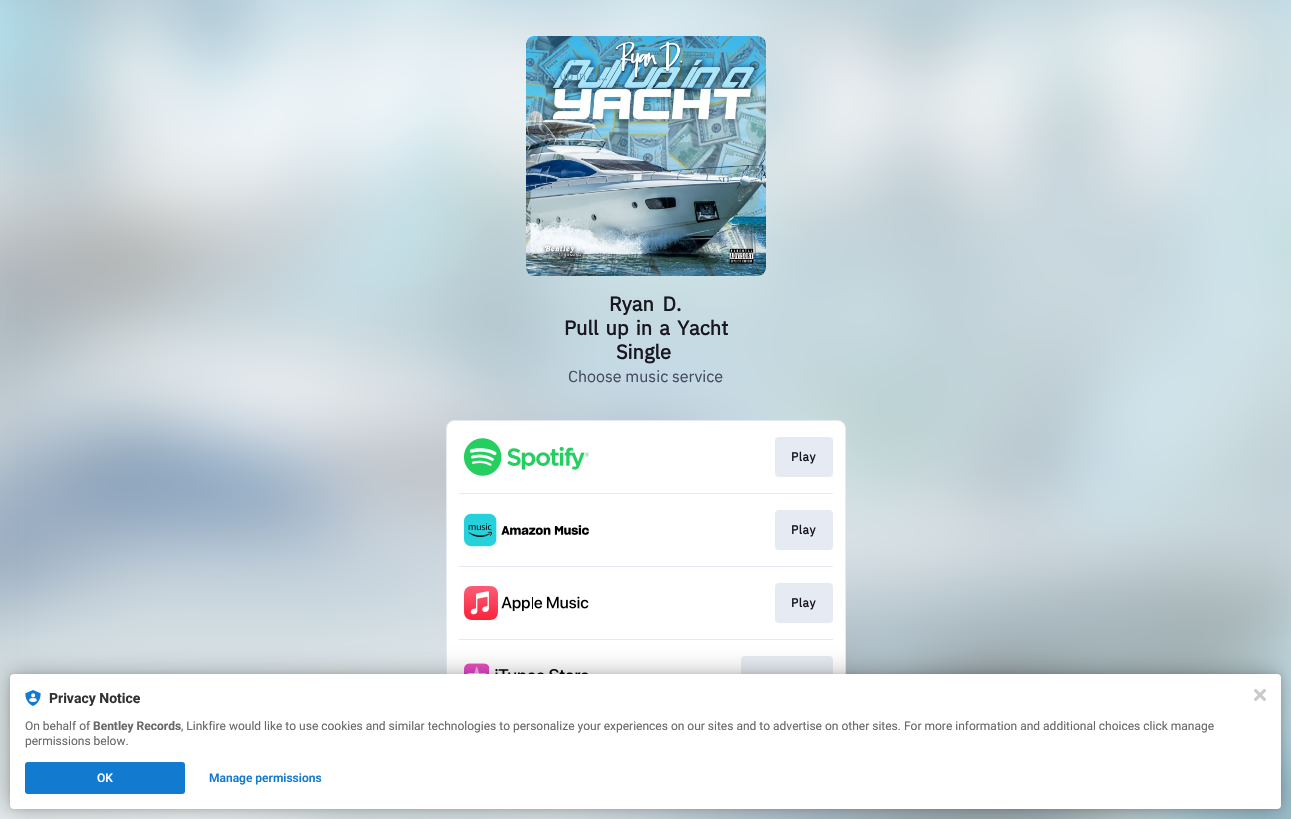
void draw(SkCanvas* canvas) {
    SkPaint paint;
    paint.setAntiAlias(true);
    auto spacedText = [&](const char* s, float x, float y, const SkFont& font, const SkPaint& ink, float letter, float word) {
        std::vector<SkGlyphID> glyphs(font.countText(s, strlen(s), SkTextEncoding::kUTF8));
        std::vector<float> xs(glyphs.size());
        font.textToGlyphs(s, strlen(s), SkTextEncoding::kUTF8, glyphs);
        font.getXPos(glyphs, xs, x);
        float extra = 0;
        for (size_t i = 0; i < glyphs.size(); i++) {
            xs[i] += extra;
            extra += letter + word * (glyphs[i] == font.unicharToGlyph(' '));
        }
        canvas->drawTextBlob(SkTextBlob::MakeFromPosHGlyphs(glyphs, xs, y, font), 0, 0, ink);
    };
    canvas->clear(0xFFFFFFFF);
    canvas->drawImageRect(SkImages::DeferredFromEncodedData(SkData::MakeFromFileName("img1.png")), SkRect::MakeXYWH(0, 0, 1291, 819), SkSamplingOptions());
    canvas->drawImageRect(SkImages::DeferredFromEncodedData(SkData::MakeFromFileName("img2.png")), SkRect::MakeXYWH(526, 36, 240, 240), SkSamplingOptions());
    SkFont font1(fontMgr->matchFamilyStyle("IBM Plex Sans", SkFontStyle::Normal()), 12);
    font1.setSubpixel(true);
    paint.setColor(0xFF53A8CB);
    canvas->drawString(".", 573, 62, font1, paint);
    paint.setColor(0xFF68A3BF);
    canvas->drawString("Pull up in a …", 536, 80, font1, paint);
    SkFont font2(fontMgr->matchFamilyStyle("IBM Plex Sans", SkFontStyle::Bold()), 20);
    font2.setSubpixel(true);
    paint.setColor(0xFF181721);
    spacedText("Ryan D.", 609, 311, font2, paint, 0, 4);
    spacedText("Pull up in a Yacht", 564, 335, font2, paint, 0, 2.5f);
    canvas->drawString("Single", 616, 359, font2, paint);
    SkFont font3(fontMgr->matchFamilyStyle("IBM Plex Sans", SkFontStyle::Normal()), 16);
    font3.setSubpixel(true);
    paint.setColor(0xFF454B5F);
    canvas->drawString("Choose music service", 568, 382, font3, paint);
    paint.setStyle(SkPaint::kStroke_Style);
    paint.setStrokeWidth(1);
    paint.setColor(0xFFE6EAF2);
    canvas->drawRoundRect(SkRect::MakeXYWH(446.5f, 420.5f, 399, 365), 7.5f, 7.5f, paint);
    paint.setStyle(SkPaint::kFill_Style);
    paint.setColor(0xFFFFFFFF);
    canvas->drawRoundRect(SkRect::MakeXYWH(447, 421, 398, 364), 7, 7, paint);
    canvas->drawImageRect(SkImages::DeferredFromEncodedData(SkData::MakeFromFileName("img3.png")), SkRect::MakeXYWH(464, 438, 125, 38), SkSamplingOptions());
    paint.setColor(0xFFE6EAF2);
    canvas->drawRoundRect(SkRect::MakeXYWH(775, 437, 58, 40), 4, 4, paint);
    SkFont font4(fontMgr->matchFamilyStyle("IBM Plex Sans", SkFontStyle::Bold()), 12);
    font4.setSubpixel(true);
    paint.setColor(0xFF181721);
    spacedText("Play", 791, 461, font4, paint, 0.5f, 0);
    paint.setColor(0xFFE6EAF2);
    canvas->drawRect(SkRect::MakeXYWH(459, 493, 374, 1), paint);
    canvas->drawImageRect(SkImages::DeferredFromEncodedData(SkData::MakeFromFileName("img4.png")), SkRect::MakeXYWH(464, 513, 125, 34), SkSamplingOptions());
    canvas->drawRoundRect(SkRect::MakeXYWH(775, 510, 58, 40), 4, 4, paint);
    paint.setColor(0xFF181721);
    spacedText("Play", 791, 534, font4, paint, 0.5f, 0);
    paint.setColor(0xFFE6EAF2);
    canvas->drawRect(SkRect::MakeXYWH(459, 566, 374, 1), paint);
    canvas->drawImageRect(SkImages::DeferredFromEncodedData(SkData::MakeFromFileName("img5.png")), SkRect::MakeXYWH(464, 586, 125, 34), SkSamplingOptions());
    canvas->drawRoundRect(SkRect::MakeXYWH(775, 583, 58, 40), 4, 4, paint);
    paint.setColor(0xFF181721);
    spacedText("Play", 791, 607, font4, paint, 0.5f, 0);
    paint.setColor(0xFFE6EAF2);
    canvas->drawRect(SkRect::MakeXYWH(459, 639, 374, 1), paint);
    canvas->drawImageRect(SkImages::DeferredFromEncodedData(SkData::MakeFromFileName("img6.png")), SkRect::MakeXYWH(464, 663, 124, 11), SkSamplingOptions());
    canvas->drawRoundRect(SkRect::MakeXYWH(741, 656, 92, 40), 4, 4, paint);
    paint.setColor(0x1F000000);
    paint.setMaskFilter(SkMaskFilter::MakeBlur(kNormal_SkBlurStyle, 2));
    canvas->drawRoundRect(SkRect::MakeXYWH(10, 674, 1271, 135), 4, 4, paint);
    paint.setMaskFilter(nullptr);
    paint.setColor(0x4D000000);
    paint.setMaskFilter(SkMaskFilter::MakeBlur(kNormal_SkBlurStyle, 12));
    canvas->drawRoundRect(SkRect::MakeXYWH(10, 674, 1271, 135), 4, 4, paint);
    paint.setMaskFilter(nullptr);
    paint.setColor(0xFFFFFFFF);
    canvas->drawRoundRect(SkRect::MakeXYWH(10, 674, 1271, 135), 4, 4, paint);
    canvas->drawImageRect(SkImages::DeferredFromEncodedData(SkData::MakeFromFileName("img7.png")), SkRect::MakeXYWH(25, 690, 16, 16), SkSamplingOptions());
    SkFont font5(fontMgr->matchFamilyStyle("Roboto", SkFontStyle::Bold()), 14);
    font5.setSubpixel(true);
    paint.setColor(0xFF323232);
    canvas->drawString("Privacy Notice", 49, 703, font5, paint);
    SkFont font6(fontMgr->matchFamilyStyle("Roboto", SkFontStyle::Normal()), 12);
    font6.setSubpixel(true);
    paint.setColor(0xFF686868);
    canvas->drawString("On behalf of", 25, 730, font6, paint);
    SkFont font7(fontMgr->matchFamilyStyle("Roboto", SkFontStyle::Bold()), 12);
    font7.setSubpixel(true);
    canvas->drawString("Bentley Records", 93, 730, font7, paint);
    canvas->drawString(", Linkfire would like to use cookies and similar technologies to personalize your experiences on our sites and to advertise on other sites. For more information and additional choices click manage", 181, 730, font6, paint);
    canvas->drawString("permissions below.", 25, 745, font6, paint);
    paint.setColor(0xFF137BCF);
    canvas->drawRoundRect(SkRect::MakeXYWH(25, 762, 160, 32), 3, 3, paint);
    SkFont font8(fontMgr->matchFamilyStyle("Roboto", SkFontStyle(500, SkFontStyle::kNormal_Width, SkFontStyle::kUpright_Slant)), 12);
    font8.setSubpixel(true);
    paint.setColor(0xFFFFFFFF);
    canvas->drawString("OK", 97, 782, font8, paint);
    SkFont font9(fontMgr->matchFamilyStyle("Roboto", SkFontStyle(600, SkFontStyle::kNormal_Width, SkFontStyle::kUpright_Slant)), 12);
    font9.setSubpixel(true);
    paint.setColor(0xFF137BCF);
    canvas->drawString("Manage permissions", 209, 782, font9, paint);
    canvas->drawImageRect(SkImages::DeferredFromEncodedData(SkData::MakeFromFileName("img8.png")), SkRect::MakeXYWH(1254, 689, 12, 12), SkSamplingOptions());
}
